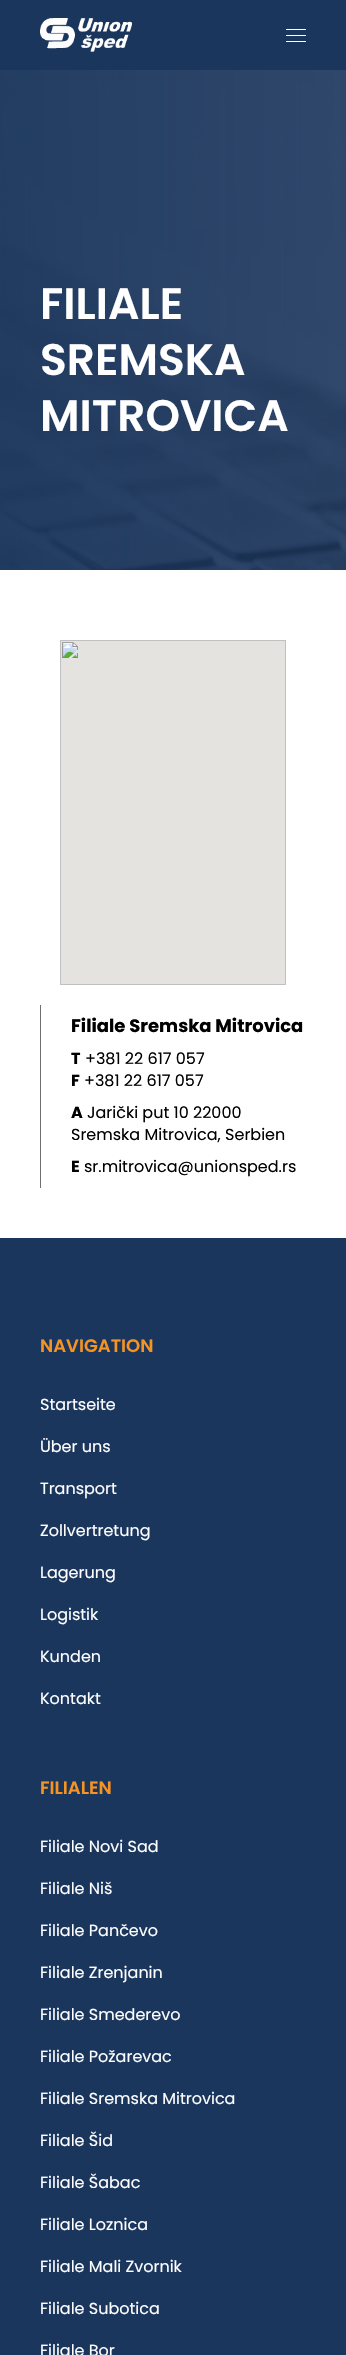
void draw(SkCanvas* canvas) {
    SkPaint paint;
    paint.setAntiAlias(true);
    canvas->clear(0xFFFFFFFF);
    paint.setColor(0xFF1B365D);
    canvas->drawRect(SkRect::MakeXYWH(0, 0, 346, 70), paint);
    canvas->drawImageRect(SkImages::DeferredFromEncodedData(SkData::MakeFromFileName("img1.png")), SkRect::MakeXYWH(40, 18, 92, 34), SkSamplingOptions());
    paint.setColor(0xFFFFFFFF);
    canvas->drawRect(SkRect::MakeXYWH(286, 29, 20, 1), paint);
    canvas->drawRect(SkRect::MakeXYWH(286, 35, 20, 1), paint);
    canvas->drawRect(SkRect::MakeXYWH(286, 41, 20, 1), paint);
    canvas->drawImageRect(SkImages::DeferredFromEncodedData(SkData::MakeFromFileName("img2.png")), SkRect::MakeXYWH(0, 70, 346, 500), SkSamplingOptions());
    SkFont font1(fontMgr->matchFamilyStyle("Poppins", SkFontStyle(600, SkFontStyle::kNormal_Width, SkFontStyle::kUpright_Slant)), 44);
    font1.setSubpixel(true);
    canvas->drawString("FILIALE", 40, 319, font1, paint);
    canvas->drawString("SREMSKA", 40, 375, font1, paint);
    canvas->drawString("MITROVICA", 40, 431, font1, paint);
    canvas->drawImageRect(SkImages::DeferredFromEncodedData(SkData::MakeFromFileName("img3.png")), SkRect::MakeXYWH(60, 640, 226, 345), SkSamplingOptions());
    paint.setColor(0xFF707070);
    canvas->drawRect(SkRect::MakeXYWH(40, 1005, 1, 183), paint);
    SkFont font2(fontMgr->matchFamilyStyle("Poppins", SkFontStyle::Bold()), 18);
    font2.setSubpixel(true);
    paint.setColor(0xFF000000);
    canvas->drawString("Filiale Sremska Mitrovica", 71, 1032, font2, paint);
    SkFont font3(fontMgr->matchFamilyStyle("Poppins", SkFontStyle::Bold()), 16);
    font3.setSubpixel(true);
    canvas->drawString("T", 71, 1064, font3, paint);
    SkFont font4(fontMgr->matchFamilyStyle("Poppins", SkFontStyle::Normal()), 16);
    font4.setSubpixel(true);
    canvas->drawString("+381 22 617 057", 85, 1064, font4, paint);
    canvas->drawString("F", 71, 1086, font3, paint);
    canvas->drawString("+381 22 617 057", 84, 1086, font4, paint);
    canvas->drawString("A", 71, 1118, font3, paint);
    canvas->drawString("Jarički put 10 22000", 87, 1118, font4, paint);
    canvas->drawString("Sremska Mitrovica, Serbien", 71, 1140, font4, paint);
    canvas->drawString("E", 71, 1172, font3, paint);
    canvas->drawString("sr.mitrovica@unionsped.rs", 84, 1172, font4, paint);
    paint.setColor(0xFF1B365D);
    canvas->drawRect(SkRect::MakeXYWH(0, 1238, 346, 1117), paint);
    SkFont font5(fontMgr->matchFamilyStyle("Poppins", SkFontStyle(600, SkFontStyle::kNormal_Width, SkFontStyle::kUpright_Slant)), 18);
    font5.setSubpixel(true);
    paint.setColor(0xFFF59323);
    canvas->drawString("NAVIGATION", 40, 1352, font5, paint);
    paint.setColor(0xFFFFFFFF);
    canvas->drawString("Startseite", 40, 1410, font4, paint);
    canvas->drawString("Über uns", 40, 1452, font4, paint);
    canvas->drawString("Transport", 40, 1494, font4, paint);
    canvas->drawString("Zollvertretung", 40, 1536, font4, paint);
    canvas->drawString("Lagerung", 40, 1578, font4, paint);
    canvas->drawString("Logistik", 40, 1620, font4, paint);
    canvas->drawString("Kunden", 40, 1662, font4, paint);
    canvas->drawString("Kontakt", 40, 1704, font4, paint);
    paint.setColor(0xFFF59323);
    canvas->drawString("FILIALEN", 40, 1794, font5, paint);
    paint.setColor(0xFFFFFFFF);
    canvas->drawString("Filiale Novi Sad", 40, 1852, font4, paint);
    canvas->drawString("Filiale Niš", 40, 1894, font4, paint);
    canvas->drawString("Filiale Pančevo", 40, 1936, font4, paint);
    canvas->drawString("Filiale Zrenjanin", 40, 1978, font4, paint);
    canvas->drawString("Filiale Smederevo", 40, 2020, font4, paint);
    canvas->drawString("Filiale Požarevac", 40, 2062, font4, paint);
    canvas->drawString("Filiale Sremska Mitrovica", 40, 2104, font4, paint);
    canvas->drawString("Filiale Šid", 40, 2146, font4, paint);
    canvas->drawString("Filiale Šabac", 40, 2188, font4, paint);
    canvas->drawString("Filiale Loznica", 40, 2230, font4, paint);
    canvas->drawString("Filiale Mali Zvornik", 40, 2272, font4, paint);
    canvas->drawString("Filiale Subotica", 40, 2314, font4, paint);
    canvas->drawString("Filiale Bor", 40, 2356, font4, paint);
}
